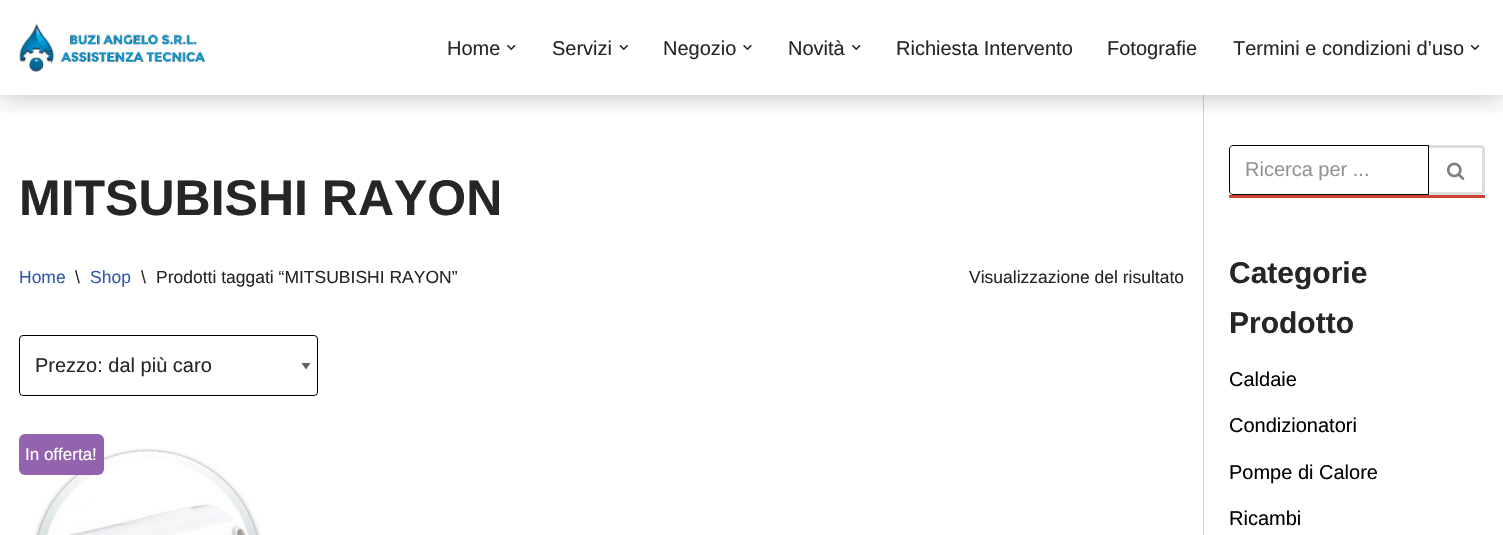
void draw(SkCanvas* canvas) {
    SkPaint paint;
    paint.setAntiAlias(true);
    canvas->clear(0xFFFFFFFF);
    paint.setColor(0xFFD3D3D3);
    canvas->drawRect(SkRect::MakeXYWH(1203, 95, 1, 440), paint);
    canvas->save();
    canvas->clipRect(SkRect::MakeXYWH(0, 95, 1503, 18));
    paint.setColor(0x45000000);
    paint.setMaskFilter(SkMaskFilter::MakeBlur(kNormal_SkBlurStyle, 12.5f));
    canvas->drawRect(SkRect::MakeXYWH(0, 0, 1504, 95), paint);
    paint.setMaskFilter(nullptr);
    canvas->restore();
    canvas->drawImageRect(SkImages::DeferredFromEncodedData(SkData::MakeFromFileName("img1.png")), SkRect::MakeXYWH(19, 23, 187, 49), SkSamplingOptions());
    SkFont font1(fontMgr->matchFamilyStyle("Liberation Sans", SkFontStyle::Normal()), 20);
    font1.setSubpixel(true);
    paint.setColor(0xFF272626);
    canvas->drawString("Home", 447, 55, font1, paint);
    canvas->drawImageRect(SkImages::DeferredFromEncodedData(SkData::MakeFromFileName("img2.png")), SkRect::MakeXYWH(507, 45, 9, 5), SkSamplingOptions());
    canvas->drawString("Servizi", 552, 55, font1, paint);
    canvas->drawImageRect(SkImages::DeferredFromEncodedData(SkData::MakeFromFileName("img3.png")), SkRect::MakeXYWH(619, 45, 9, 5), SkSamplingOptions());
    canvas->drawString("Negozio", 663, 55, font1, paint);
    canvas->drawImageRect(SkImages::DeferredFromEncodedData(SkData::MakeFromFileName("img4.png")), SkRect::MakeXYWH(743, 45, 9, 5), SkSamplingOptions());
    canvas->drawString("Novità", 788, 55, font1, paint);
    canvas->drawImageRect(SkImages::DeferredFromEncodedData(SkData::MakeFromFileName("img2.png")), SkRect::MakeXYWH(852, 45, 9, 5), SkSamplingOptions());
    canvas->drawString("Richiesta Intervento", 896, 55, font1, paint);
    canvas->drawString("Fotografie", 1107, 55, font1, paint);
    canvas->drawString("Termini e condizioni d’uso", 1233, 55, font1, paint);
    canvas->drawImageRect(SkImages::DeferredFromEncodedData(SkData::MakeFromFileName("img5.png")), SkRect::MakeXYWH(1470, 45, 10, 5), SkSamplingOptions());
    SkFont font2(fontMgr->matchFamilyStyle("Liberation Sans", SkFontStyle::Bold()), 50);
    font2.setSubpixel(true);
    canvas->drawString("MITSUBISHI RAYON", 19, 215, font2, paint);
    SkFont font3(fontMgr->matchFamilyStyle("Liberation Sans", SkFontStyle::Normal()), 17.5f);
    font3.setSubpixel(true);
    paint.setColor(0xFF2F5AAE);
    canvas->drawString("Home", 19, 283, font3, paint);
    paint.setColor(0xFF272626);
    canvas->drawString("\\", 75, 283, font3, paint);
    paint.setColor(0xFF2F5AAE);
    canvas->drawString("Shop", 90, 283, font3, paint);
    paint.setColor(0xFF272626);
    canvas->drawString("\\", 141, 283, font3, paint);
    canvas->drawString("Prodotti taggati “MITSUBISHI RAYON”", 156, 283, font3, paint);
    canvas->drawString("Visualizzazione del risultato", 969, 283, font3, paint);
    paint.setColor(0xFF626262);
    canvas->drawPath(SkPathBuilder().moveTo(310.5f, 363).lineTo(306, 369.5f).lineTo(301.5f, 363).close().detach(), paint);
    paint.setStyle(SkPaint::kStroke_Style);
    paint.setStrokeWidth(1);
    paint.setColor(0xFF000000);
    canvas->drawRoundRect(SkRect::MakeXYWH(19.5f, 335.5f, 298, 60), 3.5f, 3.5f, paint);
    paint.setStyle(SkPaint::kFill_Style);
    paint.setColor(0xFF272626);
    canvas->drawString("Prezzo: dal più caro", 35, 372, font1, paint);
    canvas->drawImageRect(SkImages::DeferredFromEncodedData(SkData::MakeFromFileName("img6.png")), SkRect::MakeXYWH(34, 448, 227, 87), SkSamplingOptions());
    paint.setColor(0xFF9463AE);
    canvas->drawRoundRect(SkRect::MakeXYWH(19, 434, 85, 41), 6, 6, paint);
    SkFont font4(fontMgr->matchFamilyStyle("Liberation Sans", SkFontStyle::Normal()), 17);
    font4.setSubpixel(true);
    paint.setColor(0xFFFFFFFF);
    canvas->drawString("In offerta!", 25, 460, font4, paint);
    paint.setColor(0xFFCB4332);
    canvas->drawRect(SkRect::MakeXYWH(1229, 195, 256, 3), paint);
    paint.setStyle(SkPaint::kStroke_Style);
    paint.setColor(0xFF000000);
    canvas->drawPath(SkPathBuilder().moveTo(1233, 145.5f).lineTo(1428.5f, 145.5f).lineTo(1428.5f, 194.5f).lineTo(1233, 194.5f).cubicTo(1231, 194.5f, 1229.5f, 193, 1229.5f, 191).lineTo(1229.5f, 149).cubicTo(1229.5f, 147, 1231, 145.5f, 1233, 145.5f).close().detach(), paint);
    paint.setStyle(SkPaint::kFill_Style);
    paint.setColor(0xFF939393);
    canvas->drawString("Ricerca per ...", 1245, 176, font1, paint);
    paint.setColor(0xFFDDDDDD);
    canvas->drawPath(SkPathBuilder(SkPathFillType::kEvenOdd).moveTo(1429, 145).lineTo(1481, 145).cubicTo(1483, 145, 1485, 147, 1485, 149).lineTo(1485, 191).cubicTo(1485, 193, 1483, 195, 1481, 195).lineTo(1429, 195).close().moveTo(1429, 148).lineTo(1481, 148).cubicTo(1482, 148, 1482, 148, 1482, 149).lineTo(1482, 191).cubicTo(1482, 192, 1482, 192, 1481, 192).lineTo(1429, 192).close().detach(), paint);
    canvas->drawImageRect(SkImages::DeferredFromEncodedData(SkData::MakeFromFileName("img7.png")), SkRect::MakeXYWH(1447, 162, 18, 18), SkSamplingOptions());
    SkFont font5(fontMgr->matchFamilyStyle("Liberation Sans", SkFontStyle::Bold()), 30);
    font5.setSubpixel(true);
    paint.setColor(0xFF272626);
    canvas->drawString("Categorie", 1229, 283, font5, paint);
    canvas->drawString("Prodotto", 1229, 333, font5, paint);
    paint.setColor(0xFF000000);
    canvas->drawString("Caldaie", 1229, 386, font1, paint);
    canvas->drawString("Condizionatori", 1229, 432, font1, paint);
    canvas->drawString("Pompe di Calore", 1229, 479, font1, paint);
    canvas->drawString("Ricambi", 1229, 525, font1, paint);
}
